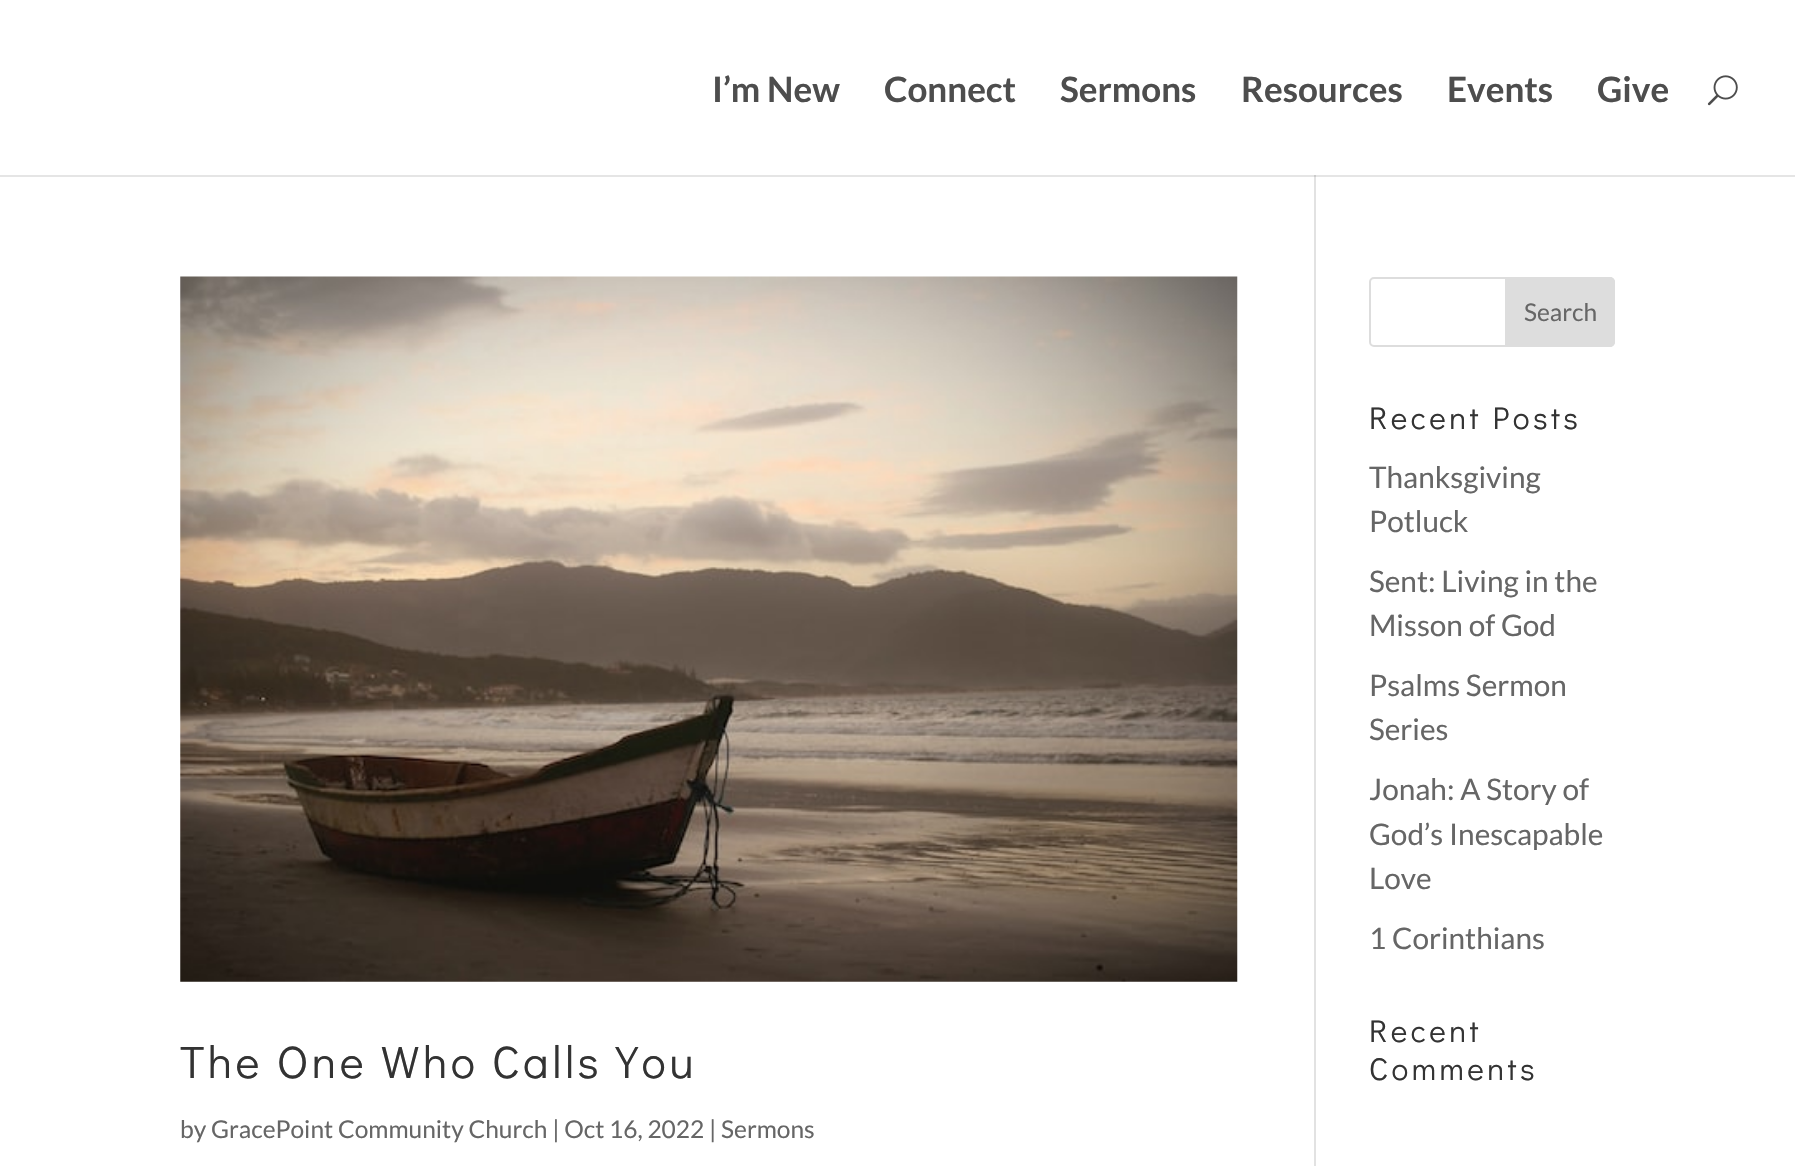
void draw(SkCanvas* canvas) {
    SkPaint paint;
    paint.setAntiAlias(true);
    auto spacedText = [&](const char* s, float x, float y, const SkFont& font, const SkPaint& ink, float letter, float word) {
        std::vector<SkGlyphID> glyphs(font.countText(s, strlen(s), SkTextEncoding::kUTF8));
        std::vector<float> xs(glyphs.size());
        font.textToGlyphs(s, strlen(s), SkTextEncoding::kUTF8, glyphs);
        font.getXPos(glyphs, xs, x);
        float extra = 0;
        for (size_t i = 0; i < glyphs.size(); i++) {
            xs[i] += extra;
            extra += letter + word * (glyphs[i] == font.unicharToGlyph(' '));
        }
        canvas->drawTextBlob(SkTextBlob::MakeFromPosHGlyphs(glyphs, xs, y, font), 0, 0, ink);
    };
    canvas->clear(0xFFFFFFFF);
    paint.setColor(0xFFE2E2E2);
    canvas->drawRect(SkRect::MakeXYWH(1314, 175, 2, 991), paint);
    paint.setColor(0x1A000000);
    canvas->drawPath(SkPathBuilder().moveTo(0, 175).lineTo(0, 177).lineTo(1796, 177).lineTo(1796, 2).lineTo(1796, 175).close().detach(), paint);
    SkFont font1(fontMgr->matchFamilyStyle("Lato", SkFontStyle::Bold()), 35);
    font1.setSubpixel(true);
    paint.setColor(0xFF4D4D4D);
    canvas->drawString("I’m New", 712, 102, font1, paint);
    canvas->drawString("Connect", 884, 102, font1, paint);
    canvas->drawString("Sermons", 1060, 102, font1, paint);
    canvas->drawString("Resources", 1241, 102, font1, paint);
    canvas->drawString("Events", 1447, 102, font1, paint);
    canvas->drawString("Give", 1597, 102, font1, paint);
    canvas->drawImageRect(SkImages::DeferredFromEncodedData(SkData::MakeFromFileName("img1.png")), SkRect::MakeXYWH(1707, 75, 31, 31), SkSamplingOptions());
    paint.setStyle(SkPaint::kStroke_Style);
    paint.setStrokeWidth(2);
    paint.setColor(0xFFDDDDDD);
    canvas->drawRoundRect(SkRect::MakeXYWH(1370, 278, 244, 68), 4, 4, paint);
    paint.setStyle(SkPaint::kFill_Style);
    canvas->drawPath(SkPathBuilder().moveTo(1506, 278).lineTo(1610, 278).cubicTo(1612, 278, 1614, 280, 1614, 282).lineTo(1614, 342).cubicTo(1614, 344, 1612, 346, 1610, 346).lineTo(1506, 346).close().detach(), paint);
    paint.setStyle(SkPaint::kStroke_Style);
    canvas->drawPath(SkPathBuilder().moveTo(1506, 278).lineTo(1610, 278).cubicTo(1612, 278, 1614, 280, 1614, 282).lineTo(1614, 342).cubicTo(1614, 344, 1612, 346, 1610, 346).lineTo(1506, 346).close().detach(), paint);
    SkFont font2(fontMgr->matchFamilyStyle("Lato", SkFontStyle::Normal()), 24.5f);
    font2.setSubpixel(true);
    paint.setStyle(SkPaint::kFill_Style);
    paint.setColor(0xFF666666);
    canvas->drawString("Search", 1524, 321, font2, paint);
    SkFont font3(fontMgr->matchFamilyStyle("Didact Gothic", SkFontStyle::Normal()), 31.5f);
    font3.setSubpixel(true);
    paint.setColor(0xFF333333);
    spacedText("Recent Posts", 1369, 429, font3, paint, 3.5f, 0);
    SkFont font4(fontMgr->matchFamilyStyle("Lato", SkFontStyle::Normal()), 29.75f);
    font4.setSubpixel(true);
    paint.setColor(0xFF666666);
    canvas->drawString("Thanksgiving", 1369, 488, font4, paint);
    canvas->drawString("Potluck", 1369, 532, font4, paint);
    canvas->drawString("Sent: Living in the", 1369, 592, font4, paint);
    canvas->drawString("Misson of God", 1369, 636, font4, paint);
    canvas->drawString("Psalms Sermon", 1369, 696, font4, paint);
    canvas->drawString("Series", 1369, 740, font4, paint);
    canvas->drawString("Jonah: A Story of", 1369, 800, font4, paint);
    canvas->drawString("God’s Inescapable", 1369, 845, font4, paint);
    canvas->drawString("Love", 1369, 889, font4, paint);
    canvas->drawString("1 Corinthians", 1369, 949, font4, paint);
    paint.setColor(0xFF333333);
    spacedText("Recent", 1369, 1042, font3, paint, 3.5f, 0);
    spacedText("Comments", 1369, 1080, font3, paint, 3.5f, 0);
    canvas->drawImageRect(SkImages::DeferredFromEncodedData(SkData::MakeFromFileName("img2.png")), SkRect::MakeXYWH(180, 276, 1058, 706), SkSamplingOptions());
    SkFont font5(fontMgr->matchFamilyStyle("Didact Gothic", SkFontStyle::Normal()), 45.5f);
    font5.setSubpixel(true);
    spacedText("The One Who Calls You", 180, 1078, font5, paint, 3.5f, 0);
    paint.setColor(0xFF666666);
    canvas->drawString("by GracePoint Community Church | Oct 16, 2022 | Sermons", 180, 1138, font2, paint);
}
